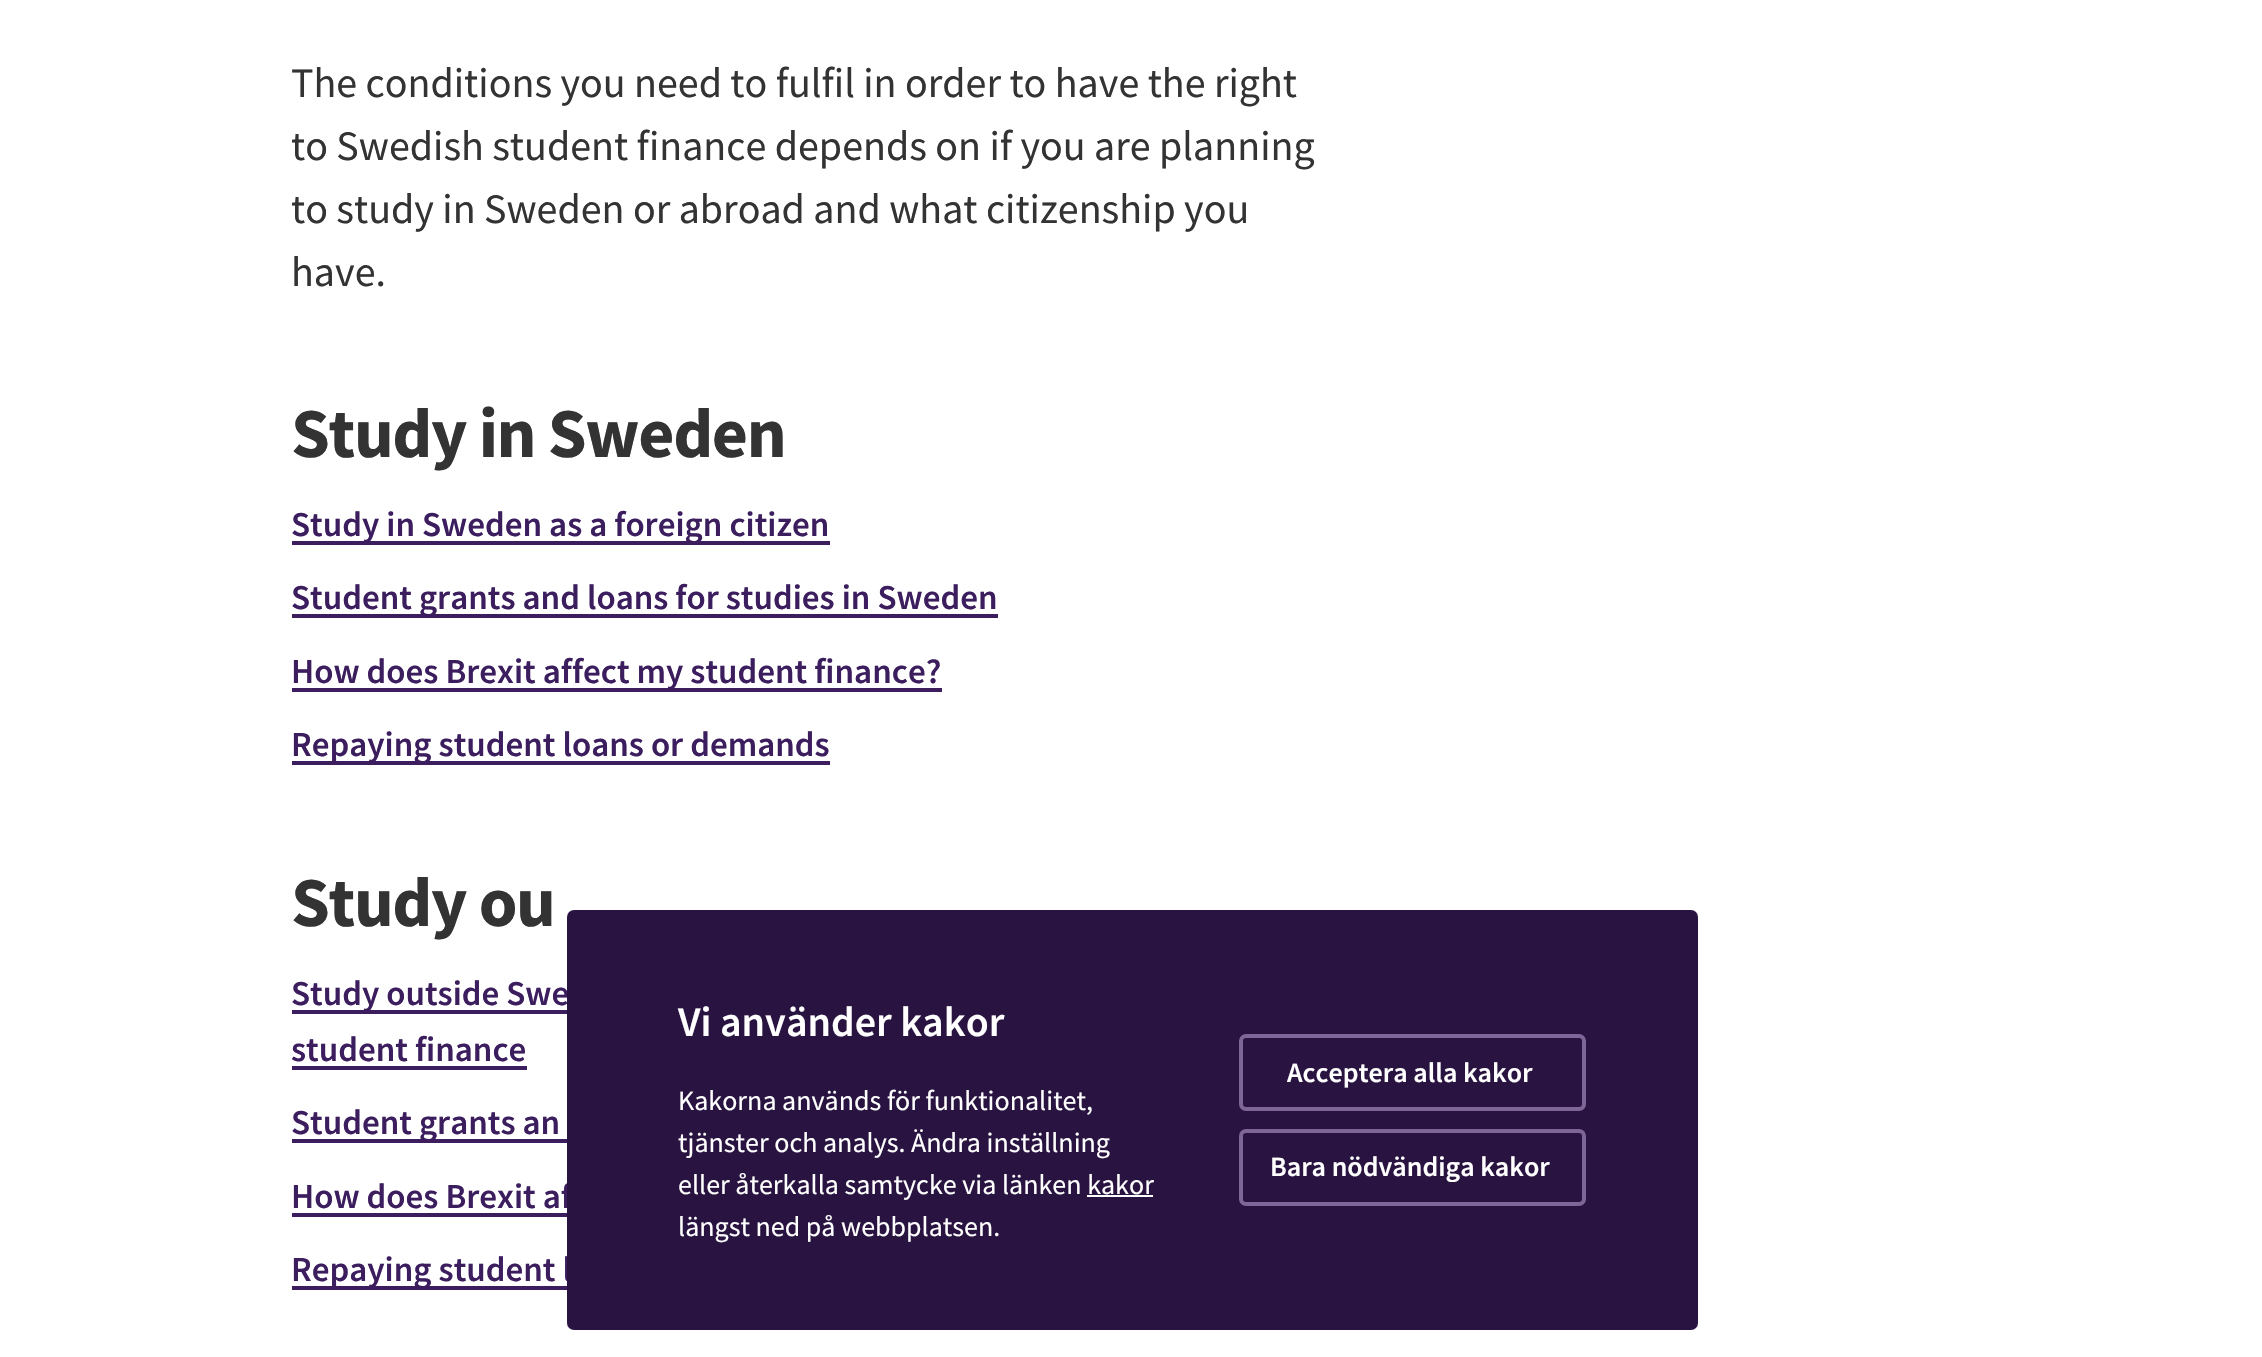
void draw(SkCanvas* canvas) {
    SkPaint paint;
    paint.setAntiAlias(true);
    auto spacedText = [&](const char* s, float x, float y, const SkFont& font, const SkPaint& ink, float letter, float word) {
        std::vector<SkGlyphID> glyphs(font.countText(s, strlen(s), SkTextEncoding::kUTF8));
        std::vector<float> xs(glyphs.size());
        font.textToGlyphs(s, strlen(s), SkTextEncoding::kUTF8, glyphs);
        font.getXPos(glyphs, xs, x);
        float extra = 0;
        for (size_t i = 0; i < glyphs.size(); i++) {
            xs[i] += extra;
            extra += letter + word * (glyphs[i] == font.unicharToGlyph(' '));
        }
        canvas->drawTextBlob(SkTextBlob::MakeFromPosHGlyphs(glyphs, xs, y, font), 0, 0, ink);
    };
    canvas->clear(0xFFFFFFFF);
    SkFont font1(fontMgr->matchFamilyStyle("Source Sans Pro", SkFontStyle::Normal()), 42);
    font1.setSubpixel(true);
    paint.setColor(0xFF333333);
    canvas->drawString("The conditions you need to fulfil in order to have the right", 291, 97, font1, paint);
    canvas->drawString("to Swedish student finance depends on if you are planning", 291, 160, font1, paint);
    canvas->drawString("to study in Sweden or abroad and what citizenship you", 291, 223, font1, paint);
    canvas->drawString("have.", 291, 286, font1, paint);
    SkFont font2(fontMgr->matchFamilyStyle("Source Sans Pro", SkFontStyle::Bold()), 70);
    font2.setSubpixel(true);
    spacedText("Study in Sweden", 291, 457, font2, paint, -1.4f, 0);
    paint.setColor(0xFF3C1E5F);
    canvas->drawRect(SkRect::MakeXYWH(292, 541, 538, 4), paint);
    SkFont font3(fontMgr->matchFamilyStyle("Source Sans Pro", SkFontStyle(600, SkFontStyle::kNormal_Width, SkFontStyle::kUpright_Slant)), 35);
    font3.setSubpixel(true);
    canvas->drawString("Study in Sweden as a foreign citizen", 291, 536, font3, paint);
    canvas->drawRect(SkRect::MakeXYWH(292, 614, 706, 4), paint);
    canvas->drawString("Student grants and loans for studies in Sweden", 291, 609, font3, paint);
    canvas->drawRect(SkRect::MakeXYWH(292, 688, 650, 4), paint);
    canvas->drawString("How does Brexit affect my student finance?", 291, 683, font3, paint);
    canvas->drawRect(SkRect::MakeXYWH(292, 761, 538, 4), paint);
    canvas->drawString("Repaying student loans or demands", 291, 756, font3, paint);
    paint.setColor(0xFF333333);
    spacedText("Study ou", 291, 926, font2, paint, -1.4f, 0);
    paint.setColor(0xFF3C1E5F);
    canvas->drawRect(SkRect::MakeXYWH(292, 1010, 275, 4), paint);
    canvas->drawString("Study outside Swe", 291, 1005, font3, paint);
    canvas->drawString("student finance", 291, 1061, font3, paint);
    canvas->drawRect(SkRect::MakeXYWH(292, 1066, 235, 4), paint);
    canvas->drawRect(SkRect::MakeXYWH(292, 1139, 275, 4), paint);
    canvas->drawString("Student grants an", 291, 1134, font3, paint);
    canvas->drawString("How does Brexit af", 291, 1208, font3, paint);
    canvas->drawRect(SkRect::MakeXYWH(292, 1213, 275, 4), paint);
    canvas->drawRect(SkRect::MakeXYWH(292, 1286, 275, 4), paint);
    canvas->drawString("Repaying student l", 291, 1281, font3, paint);
    paint.setColor(0xFF291441);
    canvas->drawRoundRect(SkRect::MakeXYWH(567, 910, 1131, 420), 7, 7, paint);
    SkFont font4(fontMgr->matchFamilyStyle("Source Sans Pro", SkFontStyle(600, SkFontStyle::kNormal_Width, SkFontStyle::kUpright_Slant)), 42);
    font4.setSubpixel(true);
    paint.setColor(0xFFFFFFFF);
    canvas->drawString("Vi använder kakor", 678, 1036, font4, paint);
    SkFont font5(fontMgr->matchFamilyStyle("Source Sans Pro", SkFontStyle::Normal()), 28);
    font5.setSubpixel(true);
    canvas->drawString("Kakorna används för funktionalitet,", 678, 1110, font5, paint);
    canvas->drawString("tjänster och analys. Ändra inställning", 678, 1152, font5, paint);
    canvas->drawString("eller återkalla samtycke via länken kakor", 678, 1194, font5, paint);
    canvas->drawRect(SkRect::MakeXYWH(1087, 1195, 66, 2), paint);
    canvas->drawString("längst ned på webbplatsen.", 678, 1236, font5, paint);
    paint.setStyle(SkPaint::kStroke_Style);
    paint.setStrokeWidth(4);
    paint.setColor(0xFF7E6699);
    canvas->drawRoundRect(SkRect::MakeXYWH(1241, 1036, 343, 73), 5, 5, paint);
    SkFont font6(fontMgr->matchFamilyStyle("Source Sans Pro", SkFontStyle(600, SkFontStyle::kNormal_Width, SkFontStyle::kUpright_Slant)), 28);
    font6.setSubpixel(true);
    paint.setStyle(SkPaint::kFill_Style);
    paint.setColor(0xFFFFFFFF);
    canvas->drawString("Acceptera alla kakor", 1287, 1082, font6, paint);
    paint.setStyle(SkPaint::kStroke_Style);
    paint.setColor(0xFF7E6699);
    canvas->drawRoundRect(SkRect::MakeXYWH(1241, 1131, 343, 73), 5, 5, paint);
    paint.setStyle(SkPaint::kFill_Style);
    paint.setColor(0xFFFFFFFF);
    canvas->drawString("Bara nödvändiga kakor", 1270, 1176, font6, paint);
}
